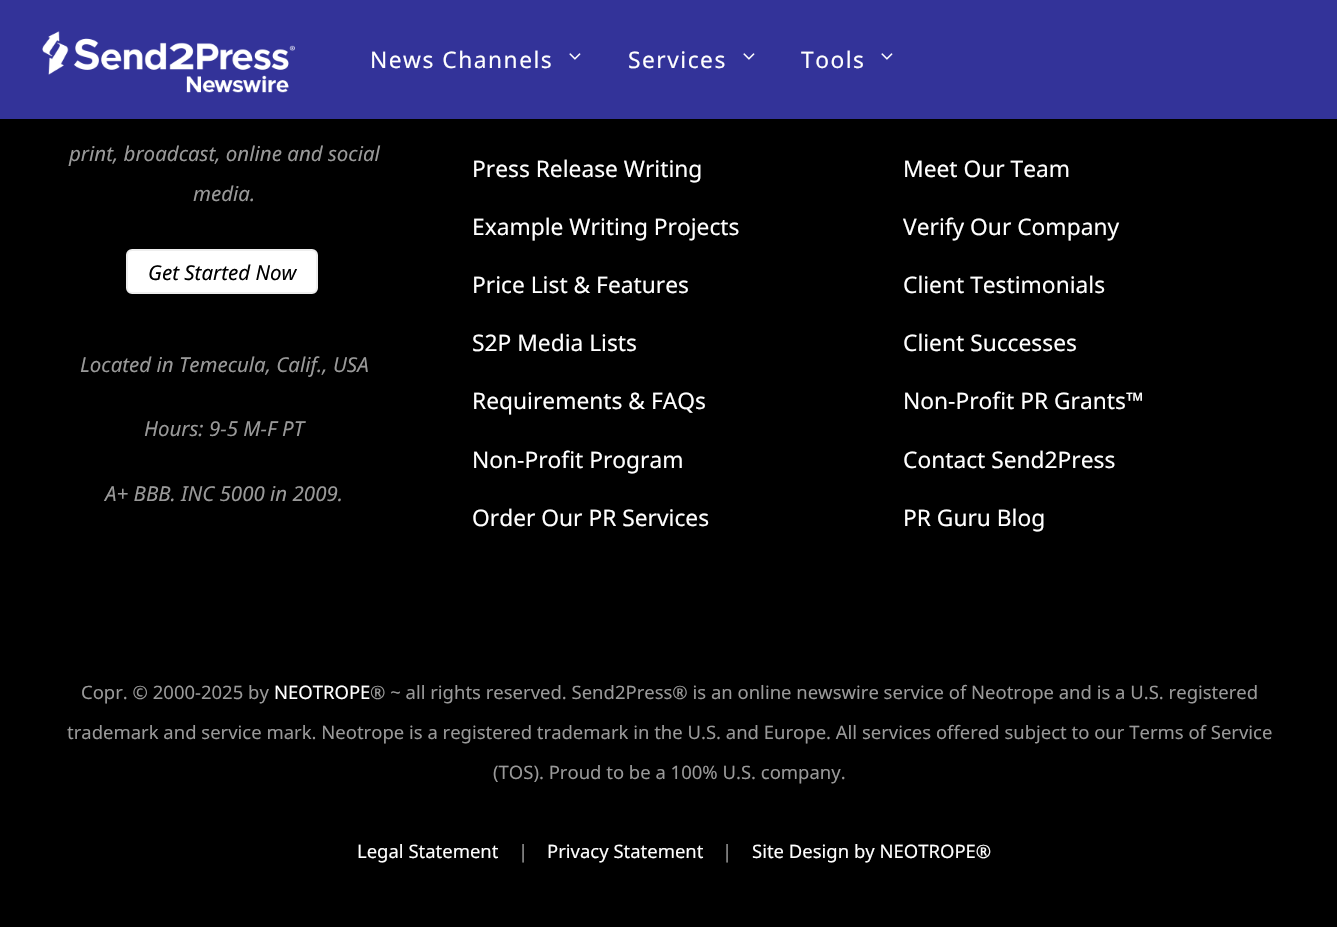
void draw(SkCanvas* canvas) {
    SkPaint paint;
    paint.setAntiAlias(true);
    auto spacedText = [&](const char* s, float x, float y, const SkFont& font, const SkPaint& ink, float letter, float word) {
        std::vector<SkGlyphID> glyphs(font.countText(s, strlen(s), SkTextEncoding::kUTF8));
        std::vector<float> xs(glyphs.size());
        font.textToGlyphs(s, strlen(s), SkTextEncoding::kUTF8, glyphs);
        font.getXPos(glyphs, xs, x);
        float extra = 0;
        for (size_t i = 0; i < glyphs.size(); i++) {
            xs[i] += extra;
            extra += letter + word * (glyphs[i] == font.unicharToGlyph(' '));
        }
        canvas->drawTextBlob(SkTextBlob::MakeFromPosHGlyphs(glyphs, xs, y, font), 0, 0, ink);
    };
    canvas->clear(0xFF000000);
    paint.setColor(0xFF333399);
    canvas->drawRect(SkRect::MakeXYWH(0, 0, 1337, 119), paint);
    canvas->drawImageRect(SkImages::DeferredFromEncodedData(SkData::MakeFromFileName("img1.png")), SkRect::MakeXYWH(42, 31, 253, 62), SkSamplingOptions());
    SkFont font1(fontMgr->matchFamilyStyle("Noto Sans", SkFontStyle::Normal()), 22.75f);
    font1.setSubpixel(true);
    paint.setColor(0xFFFFFFFF);
    spacedText("News Channels", 370, 68, font1, paint, 1.5f, 0);
    canvas->drawImageRect(SkImages::DeferredFromEncodedData(SkData::MakeFromFileName("img2.png")), SkRect::MakeXYWH(569, 53, 12, 7), SkSamplingOptions());
    spacedText("Services", 628, 68, font1, paint, 1.5f, 0);
    canvas->drawImageRect(SkImages::DeferredFromEncodedData(SkData::MakeFromFileName("img2.png")), SkRect::MakeXYWH(743, 53, 12, 7), SkSamplingOptions());
    spacedText("Tools", 801, 68, font1, paint, 1.5f, 0);
    canvas->drawImageRect(SkImages::DeferredFromEncodedData(SkData::MakeFromFileName("img2.png")), SkRect::MakeXYWH(881, 53, 12, 7), SkSamplingOptions());
    SkFont font2(fontMgr->matchFamilyStyle("Noto Sans", SkFontStyle::Italic()), 20.5f);
    font2.setSubpixel(true);
    paint.setColor(0xFF999999);
    canvas->drawString("print, broadcast, online and social", 69, 161, font2, paint);
    canvas->drawString("media.", 193, 201, font2, paint);
    paint.setColor(0xFFFFFFFF);
    canvas->drawRoundRect(SkRect::MakeXYWH(127, 250, 190, 43), 5, 5, paint);
    paint.setStyle(SkPaint::kStroke_Style);
    paint.setStrokeWidth(2);
    paint.setColor(0xFFEEEEEE);
    canvas->drawRoundRect(SkRect::MakeXYWH(127, 250, 190, 43), 5, 5, paint);
    paint.setStyle(SkPaint::kFill_Style);
    paint.setColor(0xFF000000);
    canvas->drawString("Get Started Now", 148, 280, font2, paint);
    paint.setColor(0xFF999999);
    canvas->drawString("Located in Temecula, Calif., USA", 80, 372, font2, paint);
    canvas->drawString("Hours: 9-5 M-F PT", 144, 436, font2, paint);
    canvas->drawString("A+ BBB. INC 5000 in 2009.", 105, 501, font2, paint);
    paint.setColor(0xFFFFFFFF);
    canvas->drawString("Press Release Writing", 472, 177, font1, paint);
    canvas->drawString("Example Writing Projects", 472, 235, font1, paint);
    canvas->drawString("Price List & Features", 472, 293, font1, paint);
    canvas->drawString("S2P Media Lists", 472, 351, font1, paint);
    canvas->drawString("Requirements & FAQs", 472, 409, font1, paint);
    canvas->drawString("Non-Profit Program", 472, 468, font1, paint);
    canvas->drawString("Order Our PR Services", 472, 526, font1, paint);
    canvas->drawString("Meet Our Team", 903, 177, font1, paint);
    canvas->drawString("Verify Our Company", 903, 235, font1, paint);
    canvas->drawString("Client Testimonials", 903, 293, font1, paint);
    canvas->drawString("Client Successes", 903, 351, font1, paint);
    canvas->drawString("Non-Profit PR Grants™", 903, 409, font1, paint);
    canvas->drawString("Contact Send2Press", 903, 468, font1, paint);
    canvas->drawString("PR Guru Blog", 903, 526, font1, paint);
    SkFont font3(fontMgr->matchFamilyStyle("Noto Sans", SkFontStyle::Normal()), 18.47f);
    font3.setSubpixel(true);
    paint.setColor(0xFF999999);
    canvas->drawString("Copr. © 2000-2025 by", 81, 699, font3, paint);
    paint.setColor(0xFFFFFFFF);
    canvas->drawString("NEOTROPE", 274, 699, font3, paint);
    paint.setColor(0xFF999999);
    canvas->drawString("® ~ all rights reserved. Send2Press® is an online newswire service of Neotrope and is a U.S. registered", 370, 699, font3, paint);
    canvas->drawString("trademark and service mark. Neotrope is a registered trademark in the U.S. and Europe. All services offered subject to our Terms of Service", 67, 739, font3, paint);
    canvas->drawString("(TOS). Proud to be a 100% U.S. company.", 493, 779, font3, paint);
    paint.setColor(0xFFFFFFFF);
    canvas->drawString("Legal Statement", 357, 858, font3, paint);
    paint.setColor(0xFF999999);
    canvas->drawString("|", 518, 858, font3, paint);
    paint.setColor(0xFFFFFFFF);
    canvas->drawString("Privacy Statement", 547, 858, font3, paint);
    paint.setColor(0xFF999999);
    canvas->drawString("|", 722, 858, font3, paint);
    paint.setColor(0xFFFFFFFF);
    canvas->drawString("Site Design by NEOTROPE®", 752, 858, font3, paint);
}
